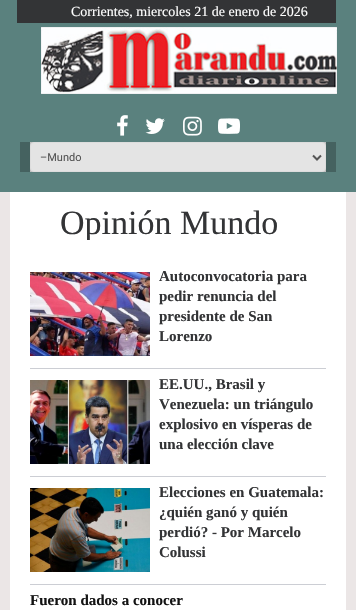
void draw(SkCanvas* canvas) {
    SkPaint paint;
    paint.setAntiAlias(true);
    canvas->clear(0xFFEBE6E6);
    paint.setColor(0xFF5A817E);
    canvas->drawRect(SkRect::MakeXYWH(0, 0, 356, 192), paint);
    paint.setColor(0xFF333436);
    canvas->drawRect(SkRect::MakeXYWH(17, 0, 319, 23), paint);
    SkFont font1(fontMgr->matchFamilyStyle("Liberation Serif", SkFontStyle::Normal()), 14);
    font1.setSubpixel(true);
    paint.setColor(0xFFFFFFFF);
    canvas->drawString("Corrientes, miercoles 21 de enero de 2026", 71, 16, font1, paint);
    canvas->drawImageRect(SkImages::DeferredFromEncodedData(SkData::MakeFromFileName("img1.png")), SkRect::MakeXYWH(41, 27, 296, 67), SkSamplingOptions());
    canvas->drawImageRect(SkImages::DeferredFromEncodedData(SkData::MakeFromFileName("img2.png")), SkRect::MakeXYWH(117, 115, 11, 21), SkSamplingOptions());
    canvas->drawImageRect(SkImages::DeferredFromEncodedData(SkData::MakeFromFileName("img3.png")), SkRect::MakeXYWH(145, 118, 20, 16), SkSamplingOptions());
    canvas->drawImageRect(SkImages::DeferredFromEncodedData(SkData::MakeFromFileName("img4.png")), SkRect::MakeXYWH(183, 116, 19, 20), SkSamplingOptions());
    canvas->drawImageRect(SkImages::DeferredFromEncodedData(SkData::MakeFromFileName("img5.png")), SkRect::MakeXYWH(218, 118, 22, 16), SkSamplingOptions());
    paint.setColor(0xFF456260);
    canvas->drawRect(SkRect::MakeXYWH(20, 142, 316, 30), paint);
    paint.setColor(0xFFC0C0C0);
    canvas->drawRect(SkRect::MakeXYWH(30, 142, 296, 30), paint);
    paint.setColor(0xFFE4E4E4);
    canvas->drawRoundRect(SkRect::MakeXYWH(30.5f, 142.5f, 295, 29), 3.5f, 3.5f, paint);
    paint.setStyle(SkPaint::kStroke_Style);
    paint.setStrokeWidth(1);
    paint.setColor(0xFFDDDDDD);
    canvas->drawRoundRect(SkRect::MakeXYWH(30.5f, 142.5f, 295, 29), 3.5f, 3.5f, paint);
    paint.setStrokeWidth(2);
    paint.setColor(0xFF555555);
    canvas->drawPath(SkPathBuilder().moveTo(313, 155.5f).lineTo(317, 159.5f).lineTo(321, 155.5f).detach(), paint);
    SkFont font2(fontMgr->matchFamilyStyle("Roboto", SkFontStyle::Normal()), 11);
    font2.setSubpixel(true);
    paint.setStyle(SkPaint::kFill_Style);
    canvas->drawString("–Mundo", 40, 161, font2, paint);
    paint.setColor(0xFFFFFFFF);
    canvas->drawRect(SkRect::MakeXYWH(10, 192, 336, 418), paint);
    canvas->save();
    canvas->clipRect(SkRect::MakeXYWH(60, 205, 266, 35));
    SkFont font3(fontMgr->matchFamilyStyle("Liberation Serif", SkFontStyle::Normal()), 34);
    font3.setSubpixel(true);
    paint.setColor(0xFF333436);
    canvas->drawString("Opinión Mundo", 60, 234, font3, paint);
    canvas->restore();
    paint.setColor(0xFFCCCED4);
    canvas->drawRect(SkRect::MakeXYWH(30, 368, 296, 1), paint);
    canvas->drawImageRect(SkImages::DeferredFromEncodedData(SkData::MakeFromFileName("img6.png")), SkRect::MakeXYWH(30, 272, 120, 84), SkSamplingOptions());
    SkFont font4(fontMgr->matchFamilyStyle("Liberation Serif", SkFontStyle::Bold()), 15);
    font4.setSubpixel(true);
    paint.setColor(0xFF333436);
    canvas->drawString("Autoconvocatoria para", 159, 281, font4, paint);
    canvas->drawString("pedir renuncia del", 159, 301, font4, paint);
    canvas->drawString("presidente de San", 159, 321, font4, paint);
    canvas->drawString("Lorenzo", 159, 341, font4, paint);
    paint.setColor(0xFFCCCED4);
    canvas->drawRect(SkRect::MakeXYWH(30, 476, 296, 1), paint);
    canvas->drawImageRect(SkImages::DeferredFromEncodedData(SkData::MakeFromFileName("img7.png")), SkRect::MakeXYWH(30, 380, 120, 84), SkSamplingOptions());
    paint.setColor(0xFF333436);
    canvas->drawString("EE.UU., Brasil y", 159, 389, font4, paint);
    canvas->drawString("Venezuela: un triángulo", 159, 409, font4, paint);
    canvas->drawString("explosivo en vísperas de", 159, 429, font4, paint);
    canvas->drawString("una elección clave", 159, 449, font4, paint);
    paint.setColor(0xFFCCCED4);
    canvas->drawRect(SkRect::MakeXYWH(30, 584, 296, 1), paint);
    canvas->drawImageRect(SkImages::DeferredFromEncodedData(SkData::MakeFromFileName("img8.png")), SkRect::MakeXYWH(30, 488, 120, 84), SkSamplingOptions());
    paint.setColor(0xFF333436);
    canvas->drawString("Elecciones en Guatemala:", 159, 497, font4, paint);
    canvas->drawString("¿quién ganó y quién", 159, 517, font4, paint);
    canvas->drawString("perdió? - Por Marcelo", 159, 537, font4, paint);
    canvas->drawString("Colussi", 159, 557, font4, paint);
    paint.setColor(0xFF131313);
    canvas->drawString("Fueron dados a conocer", 30, 605, font4, paint);
}
